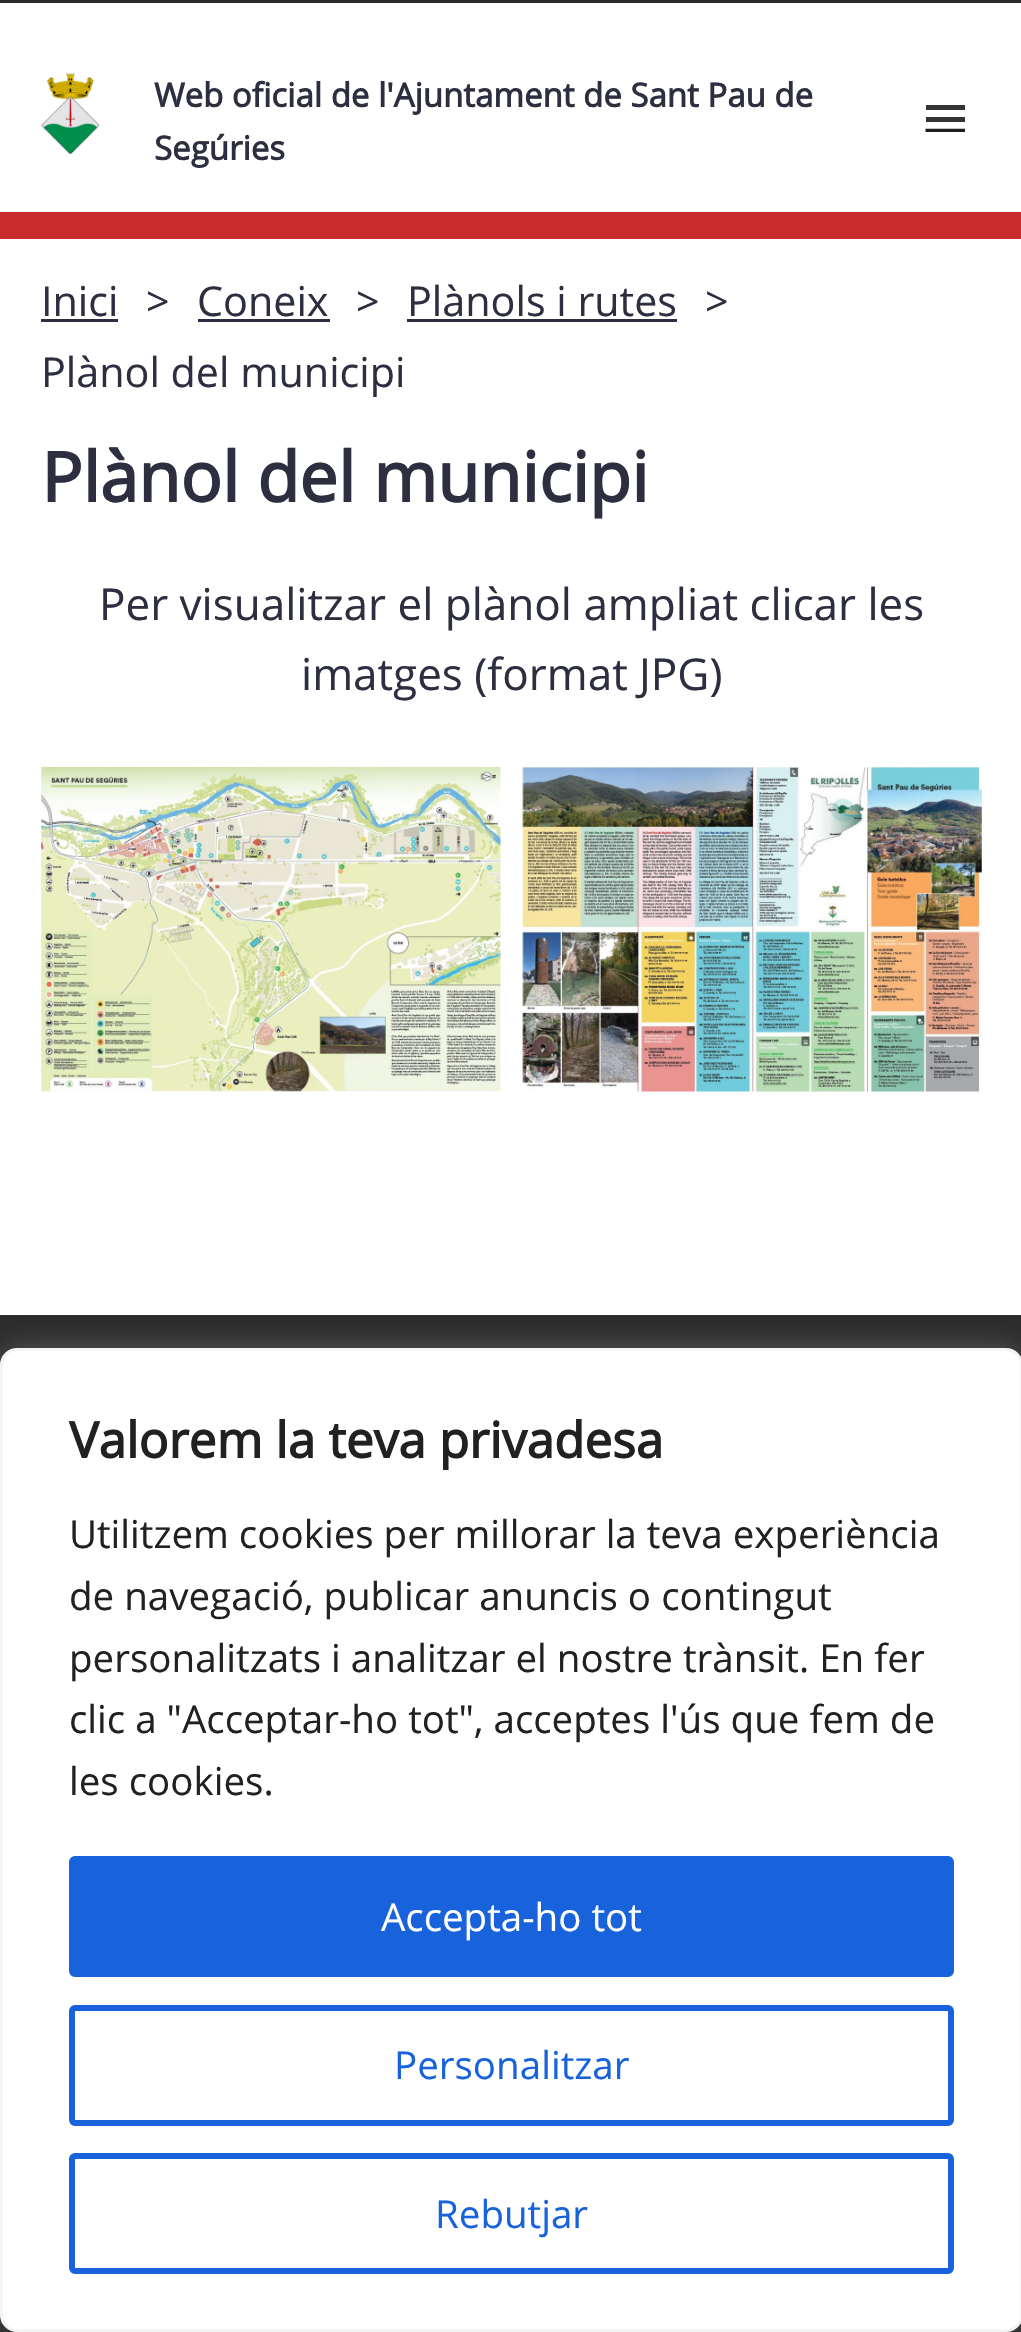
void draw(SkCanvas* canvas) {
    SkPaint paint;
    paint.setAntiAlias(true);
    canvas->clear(0xFFFFFFFF);
    paint.setColor(0xFFC92C2C);
    canvas->drawRect(SkRect::MakeXYWH(0, 212, 1021, 27), paint);
    paint.setColor(0xFF2B2B2B);
    canvas->drawRect(SkRect::MakeXYWH(0, 0, 1021, 3), paint);
    canvas->drawImageRect(SkImages::DeferredFromEncodedData(SkData::MakeFromFileName("img1.png")), SkRect::MakeXYWH(41, 73, 58, 81), SkSamplingOptions());
    SkFont font1(fontMgr->matchFamilyStyle("Open Sans", SkFontStyle::Bold()), 33);
    font1.setSubpixel(true);
    paint.setColor(0xFF2D2E40);
    canvas->drawString("Web oficial de l'Ajuntament de Sant Pau de", 154, 107, font1, paint);
    canvas->drawString("Segúries", 154, 160, font1, paint);
    paint.setColor(0xFF343432);
    canvas->drawRect(SkRect::MakeXYWH(926, 105, 39, 5), paint);
    canvas->drawRect(SkRect::MakeXYWH(926, 117, 39, 5), paint);
    canvas->save();
    canvas->clipRect(SkRect::MakeXYWH(924, 105, 41, 27));
    paint.setStyle(SkPaint::kStroke_Style);
    paint.setStrokeWidth(4.5f);
    paint.setColor(0xFF1D1D1B);
    canvas->drawPath(SkPathBuilder().moveTo(925.5f, 131).lineTo(965, 131).detach(), paint);
    canvas->restore();
    SkFont font2(fontMgr->matchFamilyStyle("Open Sans", SkFontStyle::Normal()), 41.25f);
    font2.setSubpixel(true);
    paint.setStyle(SkPaint::kFill_Style);
    paint.setColor(0xFF2D2E40);
    canvas->drawString("Inici", 41, 316, font2, paint);
    canvas->drawRect(SkRect::MakeXYWH(41, 319, 77, 3), paint);
    SkFont font3(fontMgr->matchFamilyStyle("Open Sans", SkFontStyle::Normal()), 41);
    font3.setSubpixel(true);
    canvas->drawString(">", 146, 316, font3, paint);
    canvas->drawString("Coneix", 197, 316, font2, paint);
    canvas->drawRect(SkRect::MakeXYWH(198, 319, 132, 3), paint);
    canvas->drawString(">", 356, 316, font3, paint);
    canvas->drawString("Plànols i rutes", 407, 316, font2, paint);
    canvas->drawRect(SkRect::MakeXYWH(407, 319, 270, 3), paint);
    canvas->drawString(">", 705, 316, font3, paint);
    canvas->drawString("Plànol del municipi", 41, 387, font2, paint);
    SkFont font4(fontMgr->matchFamilyStyle("Open Sans", SkFontStyle::Bold()), 68.75f);
    font4.setSubpixel(true);
    canvas->drawString("Plànol del municipi", 41, 502, font4, paint);
    SkFont font5(fontMgr->matchFamilyStyle("Open Sans", SkFontStyle::Normal()), 44);
    font5.setSubpixel(true);
    canvas->drawString("Per visualitzar el plànol ampliat clicar les", 99, 620, font5, paint);
    canvas->drawString("imatges (format JPG)", 301, 690, font5, paint);
    canvas->drawImageRect(SkImages::DeferredFromEncodedData(SkData::MakeFromFileName("img2.png")), SkRect::MakeXYWH(41, 767, 460, 325), SkSamplingOptions());
    canvas->drawImageRect(SkImages::DeferredFromEncodedData(SkData::MakeFromFileName("img3.png")), SkRect::MakeXYWH(522, 767, 460, 325), SkSamplingOptions());
    paint.setColor(0xFF2B2B2B);
    canvas->drawRect(SkRect::MakeXYWH(0, 1315, 1021, 1017), paint);
    paint.setColor(0x4DACABAB);
    paint.setMaskFilter(SkMaskFilter::MakeBlur(kNormal_SkBlurStyle, 14));
    canvas->drawRoundRect(SkRect::MakeXYWH(0, 1345, 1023, 984), 17, 17, paint);
    paint.setMaskFilter(nullptr);
    paint.setColor(0xFFFFFFFF);
    canvas->drawRoundRect(SkRect::MakeXYWH(1.5f, 1349.5f, 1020, 981), 15.5f, 15.5f, paint);
    paint.setStyle(SkPaint::kStroke_Style);
    paint.setStrokeWidth(3);
    paint.setColor(0xFFF4F4F4);
    canvas->drawRoundRect(SkRect::MakeXYWH(1.5f, 1349.5f, 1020, 981), 15.5f, 15.5f, paint);
    SkFont font6(fontMgr->matchFamilyStyle("Open Sans", SkFontStyle::Bold()), 49.5f);
    font6.setSubpixel(true);
    paint.setStyle(SkPaint::kFill_Style);
    paint.setColor(0xFF212121);
    canvas->drawString("Valorem la teva privadesa", 69, 1458, font6, paint);
    SkFont font7(fontMgr->matchFamilyStyle("Open Sans", SkFontStyle::Normal()), 38.5f);
    font7.setSubpixel(true);
    canvas->drawString("Utilitzem cookies per millorar la teva experiència", 69, 1548, font7, paint);
    canvas->drawString("de navegació, publicar anuncis o contingut", 69, 1610, font7, paint);
    canvas->drawString("personalitzats i analitzar el nostre trànsit. En fer", 69, 1672, font7, paint);
    canvas->drawString("clic a \"Acceptar-ho tot\", acceptes l'ús que fem de", 69, 1733, font7, paint);
    canvas->drawString("les cookies.", 69, 1795, font7, paint);
    paint.setColor(0xFF1863DC);
    canvas->drawRoundRect(SkRect::MakeXYWH(72, 1859, 879, 115), 3, 3, paint);
    paint.setStyle(SkPaint::kStroke_Style);
    paint.setStrokeWidth(6);
    canvas->drawRoundRect(SkRect::MakeXYWH(72, 1859, 879, 115), 3, 3, paint);
    paint.setStyle(SkPaint::kFill_Style);
    paint.setColor(0xFFFFFFFF);
    canvas->drawString("Accepta-ho tot", 381, 1931, font7, paint);
    paint.setStyle(SkPaint::kStroke_Style);
    paint.setColor(0xFF1863DC);
    canvas->drawRoundRect(SkRect::MakeXYWH(72, 2008, 879, 115), 3, 3, paint);
    paint.setStyle(SkPaint::kFill_Style);
    canvas->drawString("Personalitzar", 394, 2079, font7, paint);
    paint.setStyle(SkPaint::kStroke_Style);
    canvas->drawRoundRect(SkRect::MakeXYWH(72, 2156, 879, 115), 3, 3, paint);
    paint.setStyle(SkPaint::kFill_Style);
    canvas->drawString("Rebutjar", 435, 2228, font7, paint);
}
